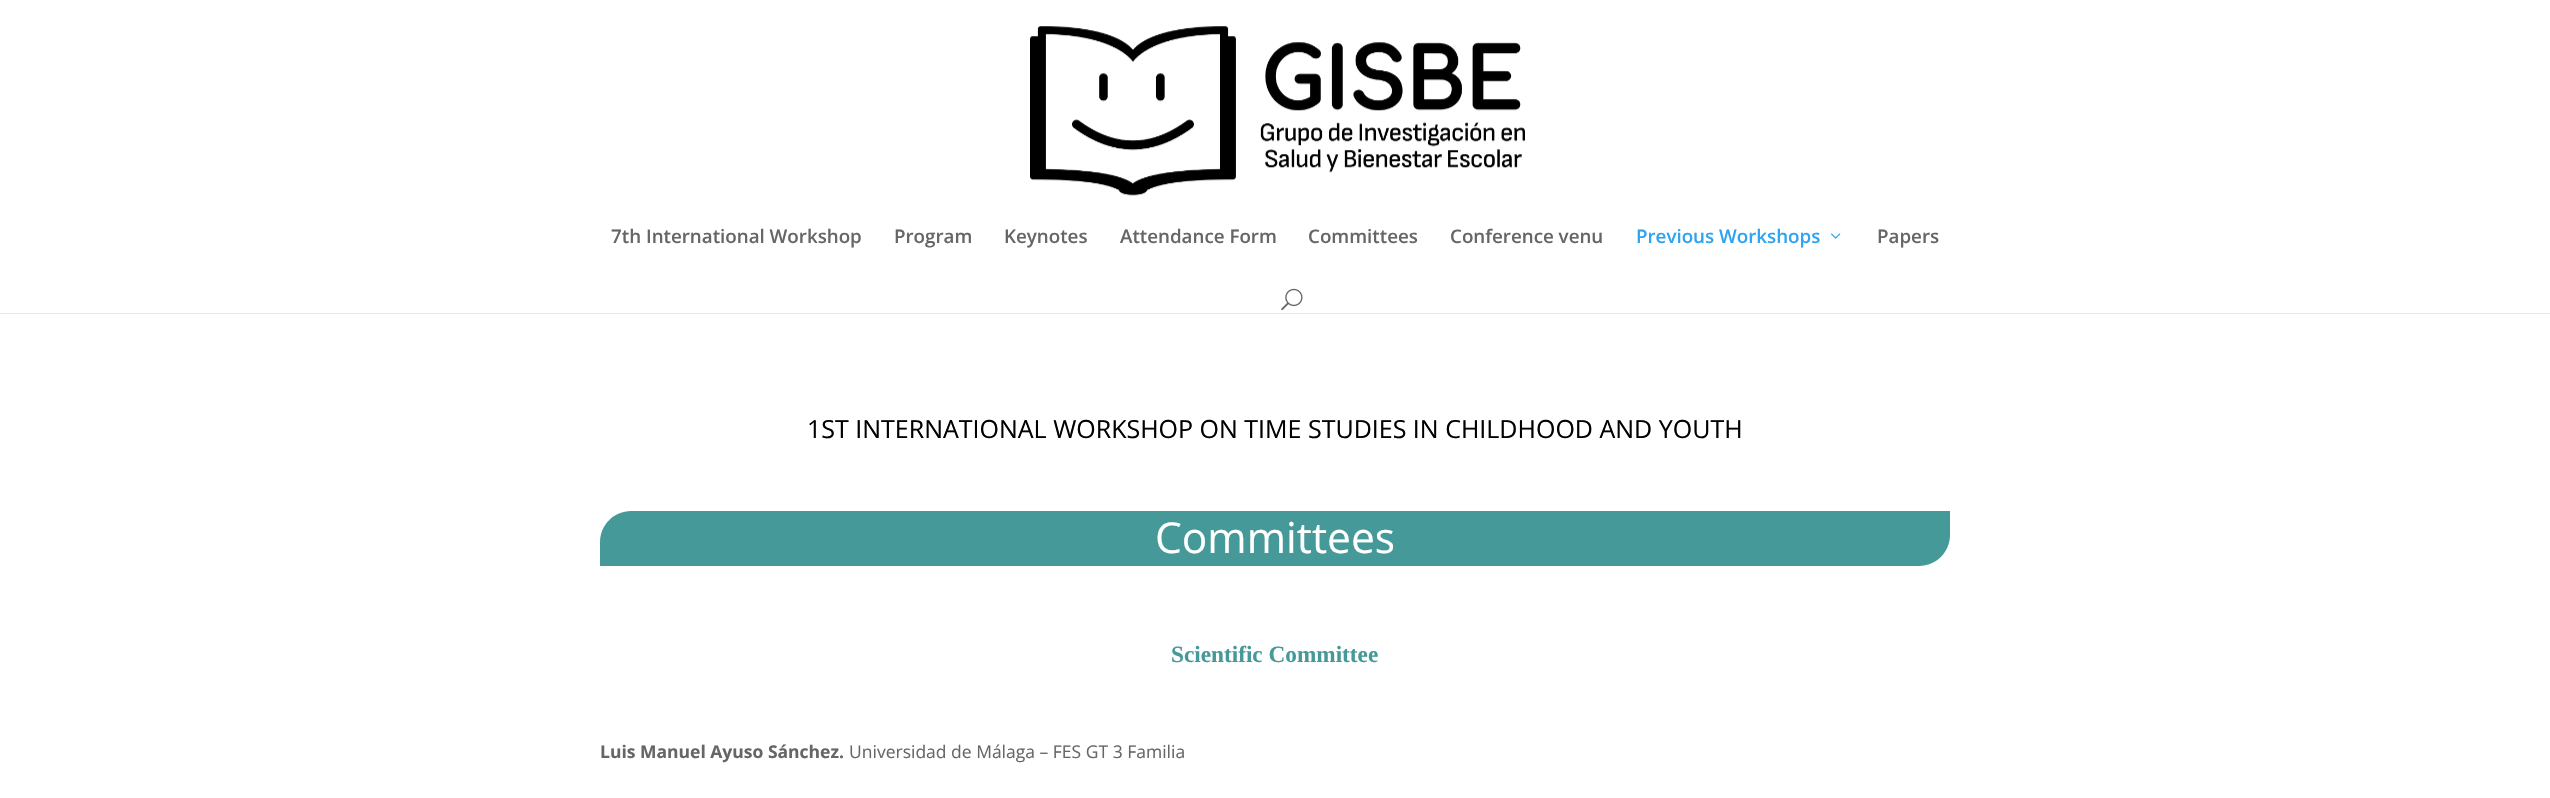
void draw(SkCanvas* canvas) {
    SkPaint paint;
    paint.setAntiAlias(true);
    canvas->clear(0xFFFFFFFF);
    paint.setColor(0xFFE6E6E6);
    canvas->drawRect(SkRect::MakeXYWH(0, 313, 2550, 1), paint);
    canvas->drawImageRect(SkImages::DeferredFromEncodedData(SkData::MakeFromFileName("img1.png")), SkRect::MakeXYWH(1030, 26, 495, 170), SkSamplingOptions());
    SkFont font1(fontMgr->matchFamilyStyle("Open Sans", SkFontStyle(600, SkFontStyle::kNormal_Width, SkFontStyle::kUpright_Slant)), 18.75f);
    font1.setSubpixel(true);
    paint.setColor(0xFF666666);
    canvas->drawString("7th International Workshop", 611, 243, font1, paint);
    canvas->drawString("Program", 894, 243, font1, paint);
    canvas->drawString("Keynotes", 1004, 243, font1, paint);
    canvas->drawString("Attendance Form", 1120, 243, font1, paint);
    canvas->drawString("Committees", 1308, 243, font1, paint);
    canvas->drawString("Conference venu", 1450, 243, font1, paint);
    paint.setColor(0xFF2EA3F2);
    canvas->drawString("Previous Workshops", 1636, 243, font1, paint);
    canvas->drawImageRect(SkImages::DeferredFromEncodedData(SkData::MakeFromFileName("img2.png")), SkRect::MakeXYWH(1831, 233, 10, 6), SkSamplingOptions());
    paint.setColor(0xFF666666);
    canvas->drawString("Papers", 1877, 243, font1, paint);
    canvas->drawImageRect(SkImages::DeferredFromEncodedData(SkData::MakeFromFileName("img3.png")), SkRect::MakeXYWH(1281, 288, 22, 23), SkSamplingOptions());
    SkFont font2(fontMgr->matchFamilyStyle("Open Sans", SkFontStyle::Normal()), 25);
    font2.setSubpixel(true);
    paint.setColor(0xFF000000);
    canvas->drawString("1ST INTERNATIONAL WORKSHOP ON TIME STUDIES IN CHILDHOOD AND YOUTH", 807, 438, font2, paint);
    paint.setColor(0xFF469999);
    canvas->drawPath(SkPathBuilder().moveTo(631, 511).lineTo(1950, 511).lineTo(1950, 535).cubicTo(1950, 552, 1936, 566, 1919, 566).lineTo(600, 566).lineTo(600, 542).cubicTo(600, 525, 614, 511, 631, 511).close().detach(), paint);
    SkFont font3(fontMgr->matchFamilyStyle("Open Sans", SkFontStyle::Normal()), 42.5f);
    font3.setSubpixel(true);
    paint.setColor(0xFFFFFFFF);
    canvas->drawString("Committees", 1155, 553, font3, paint);
    SkFont font4(fontMgr->matchFamilyStyle("Liberation Serif", SkFontStyle::Bold()), 23.25f);
    font4.setSubpixel(true);
    paint.setColor(0xFF469999);
    canvas->drawString("Scientific Committee", 1171, 662, font4, paint);
    SkFont font5(fontMgr->matchFamilyStyle("Open Sans", SkFontStyle::Bold()), 17.5f);
    font5.setSubpixel(true);
    paint.setColor(0xFF666666);
    canvas->drawString("Luis Manuel Ayuso Sánchez.", 600, 758, font5, paint);
    SkFont font6(fontMgr->matchFamilyStyle("Open Sans", SkFontStyle::Normal()), 17.5f);
    font6.setSubpixel(true);
    canvas->drawString("Universidad de Málaga – FES GT 3 Familia", 849, 758, font6, paint);
}
